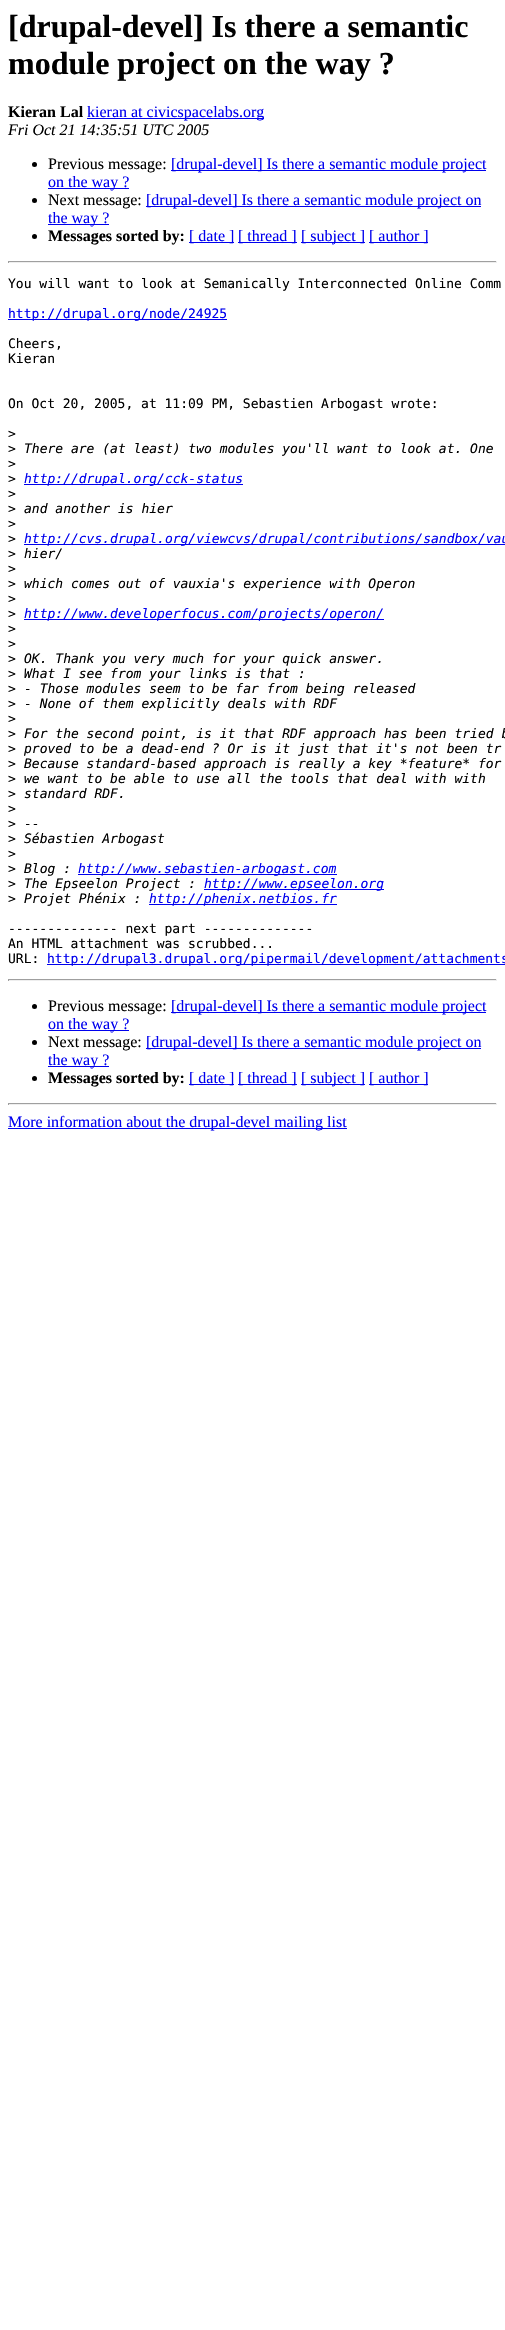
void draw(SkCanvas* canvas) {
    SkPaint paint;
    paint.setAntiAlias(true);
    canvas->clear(0xFFFFFFFF);
    SkFont font1(fontMgr->matchFamilyStyle("Liberation Serif", SkFontStyle::Bold()), 32);
    font1.setSubpixel(true);
    paint.setColor(0xFF000000);
    canvas->drawString("[drupal-devel] Is there a semantic", 8, 37, font1, paint);
    canvas->drawString("module project on the way ?", 8, 74, font1, paint);
    SkFont font2(fontMgr->matchFamilyStyle("Liberation Serif", SkFontStyle::Bold()), 16);
    font2.setSubpixel(true);
    canvas->drawString("Kieran Lal", 8, 117, font2, paint);
    paint.setColor(0xFF0000EE);
    canvas->drawRect(SkRect::MakeXYWH(87, 118, 177, 1), paint);
    SkFont font3(fontMgr->matchFamilyStyle("Liberation Serif", SkFontStyle::Normal()), 16);
    font3.setSubpixel(true);
    canvas->drawString("kieran at civicspacelabs.org", 87, 117, font3, paint);
    SkFont font4(fontMgr->matchFamilyStyle("Liberation Serif", SkFontStyle::Italic()), 16);
    font4.setSubpixel(true);
    paint.setColor(0xFF000000);
    canvas->drawString("Fri Oct 21 14:35:51 UTC 2005", 8, 135, font4, paint);
    canvas->drawCircle(34.5f, 164.5f, 2.5f, paint);
    canvas->drawString("Previous message:", 48, 169, font3, paint);
    paint.setColor(0xFF0000EE);
    canvas->drawRect(SkRect::MakeXYWH(171, 170, 315, 1), paint);
    canvas->drawString("[drupal-devel] Is there a semantic module project", 171, 169, font3, paint);
    canvas->drawRect(SkRect::MakeXYWH(48, 188, 81, 1), paint);
    canvas->drawString("on the way ?", 48, 187, font3, paint);
    paint.setColor(0xFF000000);
    canvas->drawCircle(34.5f, 200.5f, 2.5f, paint);
    canvas->drawString("Next message:", 48, 205, font3, paint);
    paint.setColor(0xFF0000EE);
    canvas->drawRect(SkRect::MakeXYWH(146, 206, 335, 1), paint);
    canvas->drawString("[drupal-devel] Is there a semantic module project on", 146, 205, font3, paint);
    canvas->drawRect(SkRect::MakeXYWH(48, 224, 61, 1), paint);
    canvas->drawString("the way ?", 48, 223, font3, paint);
    paint.setColor(0xFF000000);
    canvas->drawCircle(34.5f, 236.5f, 2.5f, paint);
    canvas->drawString("Messages sorted by:", 48, 241, font2, paint);
    paint.setColor(0xFF0000EE);
    canvas->drawRect(SkRect::MakeXYWH(189, 242, 45, 1), paint);
    canvas->drawString("[ date ]", 189, 241, font3, paint);
    canvas->drawRect(SkRect::MakeXYWH(238, 242, 59, 1), paint);
    canvas->drawString("[ thread ]", 238, 241, font3, paint);
    canvas->drawRect(SkRect::MakeXYWH(301, 242, 64, 1), paint);
    canvas->drawString("[ subject ]", 301, 241, font3, paint);
    canvas->drawRect(SkRect::MakeXYWH(369, 242, 59, 1), paint);
    canvas->drawString("[ author ]", 369, 241, font3, paint);
    paint.setColor(0xFF9F9F9F);
    canvas->drawRect(SkRect::MakeXYWH(8, 261, 489, 1), paint);
    paint.setColor(0xFFEEEEEE);
    canvas->drawRect(SkRect::MakeXYWH(496, 261, 1, 2), paint);
    canvas->drawRect(SkRect::MakeXYWH(8, 262, 489, 1), paint);
    paint.setColor(0xFF9F9F9F);
    canvas->drawRect(SkRect::MakeXYWH(8, 261, 1, 2), paint);
    SkFont font5(fontMgr->matchFamilyStyle("DejaVu Sans Mono", SkFontStyle::Normal()), 13);
    font5.setSubpixel(true);
    paint.setColor(0xFF000000);
    canvas->drawString("You will want to look at Semanically Interconnected Online Comm", 8, 288, font5, paint);
    paint.setColor(0xFF0000EE);
    canvas->drawRect(SkRect::MakeXYWH(8, 319, 219, 1), paint);
    canvas->drawString("http://drupal.org/node/24925", 8, 318, font5, paint);
    paint.setColor(0xFF000000);
    canvas->drawString("Cheers,", 8, 348, font5, paint);
    canvas->drawString("Kieran", 8, 363, font5, paint);
    canvas->drawString("On Oct 20, 2005, at 11:09 PM, Sebastien Arbogast wrote:", 8, 408, font5, paint);
    canvas->drawString(">", 8, 438, font5, paint);
    canvas->drawString(">", 8, 453, font5, paint);
    SkFont font6(fontMgr->matchFamilyStyle("DejaVu Sans Mono", SkFontStyle::Italic()), 13);
    font6.setSubpixel(true);
    canvas->drawString("There are (at least) two modules you'll want to look at. One", 24, 453, font6, paint);
    canvas->drawString(">", 8, 468, font5, paint);
    canvas->drawString(">", 8, 483, font5, paint);
    paint.setColor(0xFF0000EE);
    canvas->drawRect(SkRect::MakeXYWH(24, 484, 219, 1), paint);
    canvas->drawString("http://drupal.org/cck-status", 24, 483, font6, paint);
    paint.setColor(0xFF000000);
    canvas->drawString(">", 8, 498, font5, paint);
    canvas->drawString(">", 8, 513, font5, paint);
    canvas->drawString("and another is hier", 24, 513, font6, paint);
    canvas->drawString(">", 8, 528, font5, paint);
    canvas->drawString(">", 8, 543, font5, paint);
    paint.setColor(0xFF0000EE);
    canvas->drawRect(SkRect::MakeXYWH(24, 544, 481, 1), paint);
    canvas->drawString("http://cvs.drupal.org/viewcvs/drupal/contributions/sandbox/vau", 24, 543, font6, paint);
    paint.setColor(0xFF000000);
    canvas->drawString(">", 8, 558, font5, paint);
    canvas->drawString("hier/", 24, 558, font6, paint);
    canvas->drawString(">", 8, 573, font5, paint);
    canvas->drawString(">", 8, 588, font5, paint);
    canvas->drawString("which comes out of vauxia's experience with Operon", 24, 588, font6, paint);
    canvas->drawString(">", 8, 603, font5, paint);
    canvas->drawString(">", 8, 618, font5, paint);
    paint.setColor(0xFF0000EE);
    canvas->drawRect(SkRect::MakeXYWH(24, 619, 360, 1), paint);
    canvas->drawString("http://www.developerfocus.com/projects/operon/", 24, 618, font6, paint);
    paint.setColor(0xFF000000);
    canvas->drawString(">", 8, 633, font5, paint);
    canvas->drawString(">", 8, 648, font5, paint);
    canvas->drawString(">", 8, 663, font5, paint);
    canvas->drawString("OK. Thank you very much for your quick answer.", 24, 663, font6, paint);
    canvas->drawString(">", 8, 678, font5, paint);
    canvas->drawString("What I see from your links is that :", 24, 678, font6, paint);
    canvas->drawString(">", 8, 693, font5, paint);
    canvas->drawString("- Those modules seem to be far from being released", 24, 693, font6, paint);
    canvas->drawString(">", 8, 708, font5, paint);
    canvas->drawString("- None of them explicitly deals with RDF", 24, 708, font6, paint);
    canvas->drawString(">", 8, 723, font5, paint);
    canvas->drawString(">", 8, 738, font5, paint);
    canvas->drawString("For the second point, is it that RDF approach has been tried b", 24, 738, font6, paint);
    canvas->drawString(">", 8, 753, font5, paint);
    canvas->drawString("proved to be a dead-end ? Or is it just that it's not been tr", 24, 753, font6, paint);
    canvas->drawString(">", 8, 768, font5, paint);
    canvas->drawString("Because standard-based approach is really a key *feature* for", 24, 768, font6, paint);
    canvas->drawString(">", 8, 783, font5, paint);
    canvas->drawString("we want to be able to use all the tools that deal with with", 24, 783, font6, paint);
    canvas->drawString(">", 8, 798, font5, paint);
    canvas->drawString("standard RDF.", 24, 798, font6, paint);
    canvas->drawString(">", 8, 813, font5, paint);
    canvas->drawString(">", 8, 828, font5, paint);
    canvas->drawString("--", 24, 828, font6, paint);
    canvas->drawString(">", 8, 843, font5, paint);
    canvas->drawString("Sébastien Arbogast", 24, 843, font6, paint);
    canvas->drawString(">", 8, 858, font5, paint);
    canvas->drawString(">", 8, 873, font5, paint);
    canvas->drawString("Blog :", 24, 873, font6, paint);
    paint.setColor(0xFF0000EE);
    canvas->drawRect(SkRect::MakeXYWH(78, 874, 259, 1), paint);
    canvas->drawString("http://www.sebastien-arbogast.com", 78, 873, font6, paint);
    paint.setColor(0xFF000000);
    canvas->drawString(">", 8, 888, font5, paint);
    canvas->drawString("The Epseelon Project :", 24, 888, font6, paint);
    paint.setColor(0xFF0000EE);
    canvas->drawRect(SkRect::MakeXYWH(204, 889, 180, 1), paint);
    canvas->drawString("http://www.epseelon.org", 204, 888, font6, paint);
    paint.setColor(0xFF000000);
    canvas->drawString(">", 8, 903, font5, paint);
    canvas->drawString("Projet Phénix :", 24, 903, font6, paint);
    paint.setColor(0xFF0000EE);
    canvas->drawRect(SkRect::MakeXYWH(149, 904, 188, 1), paint);
    canvas->drawString("http://phenix.netbios.fr", 149, 903, font6, paint);
    paint.setColor(0xFF000000);
    canvas->drawString("-------------- next part --------------", 8, 933, font5, paint);
    canvas->drawString("An HTML attachment was scrubbed...", 8, 948, font5, paint);
    canvas->drawString("URL:", 8, 963, font5, paint);
    paint.setColor(0xFF0000EE);
    canvas->drawRect(SkRect::MakeXYWH(47, 964, 458, 1), paint);
    canvas->drawString("http://drupal3.drupal.org/pipermail/development/attachments", 47, 963, font5, paint);
    paint.setColor(0xFF9F9F9F);
    canvas->drawRect(SkRect::MakeXYWH(8, 979, 489, 1), paint);
    paint.setColor(0xFFEEEEEE);
    canvas->drawRect(SkRect::MakeXYWH(496, 979, 1, 2), paint);
    canvas->drawRect(SkRect::MakeXYWH(8, 980, 489, 1), paint);
    paint.setColor(0xFF9F9F9F);
    canvas->drawRect(SkRect::MakeXYWH(8, 979, 1, 2), paint);
    paint.setColor(0xFF000000);
    canvas->drawCircle(34.5f, 1006.5f, 2.5f, paint);
    canvas->drawString("Previous message:", 48, 1011, font3, paint);
    paint.setColor(0xFF0000EE);
    canvas->drawRect(SkRect::MakeXYWH(171, 1012, 315, 1), paint);
    canvas->drawString("[drupal-devel] Is there a semantic module project", 171, 1011, font3, paint);
    canvas->drawRect(SkRect::MakeXYWH(48, 1030, 81, 1), paint);
    canvas->drawString("on the way ?", 48, 1029, font3, paint);
    paint.setColor(0xFF000000);
    canvas->drawCircle(34.5f, 1042.5f, 2.5f, paint);
    canvas->drawString("Next message:", 48, 1047, font3, paint);
    paint.setColor(0xFF0000EE);
    canvas->drawRect(SkRect::MakeXYWH(146, 1048, 335, 1), paint);
    canvas->drawString("[drupal-devel] Is there a semantic module project on", 146, 1047, font3, paint);
    canvas->drawRect(SkRect::MakeXYWH(48, 1066, 61, 1), paint);
    canvas->drawString("the way ?", 48, 1065, font3, paint);
    paint.setColor(0xFF000000);
    canvas->drawCircle(34.5f, 1078.5f, 2.5f, paint);
    canvas->drawString("Messages sorted by:", 48, 1083, font2, paint);
    paint.setColor(0xFF0000EE);
    canvas->drawRect(SkRect::MakeXYWH(189, 1084, 45, 1), paint);
    canvas->drawString("[ date ]", 189, 1083, font3, paint);
    canvas->drawRect(SkRect::MakeXYWH(238, 1084, 59, 1), paint);
    canvas->drawString("[ thread ]", 238, 1083, font3, paint);
    canvas->drawRect(SkRect::MakeXYWH(301, 1084, 64, 1), paint);
    canvas->drawString("[ subject ]", 301, 1083, font3, paint);
    canvas->drawRect(SkRect::MakeXYWH(369, 1084, 59, 1), paint);
    canvas->drawString("[ author ]", 369, 1083, font3, paint);
    paint.setColor(0xFF9F9F9F);
    canvas->drawRect(SkRect::MakeXYWH(8, 1103, 489, 1), paint);
    paint.setColor(0xFFEEEEEE);
    canvas->drawRect(SkRect::MakeXYWH(496, 1103, 1, 2), paint);
    canvas->drawRect(SkRect::MakeXYWH(8, 1104, 489, 1), paint);
    paint.setColor(0xFF9F9F9F);
    canvas->drawRect(SkRect::MakeXYWH(8, 1103, 1, 2), paint);
    paint.setColor(0xFF0000EE);
    canvas->drawRect(SkRect::MakeXYWH(8, 1128, 339, 1), paint);
    canvas->drawString("More information about the drupal-devel mailing list", 8, 1127, font3, paint);
}
